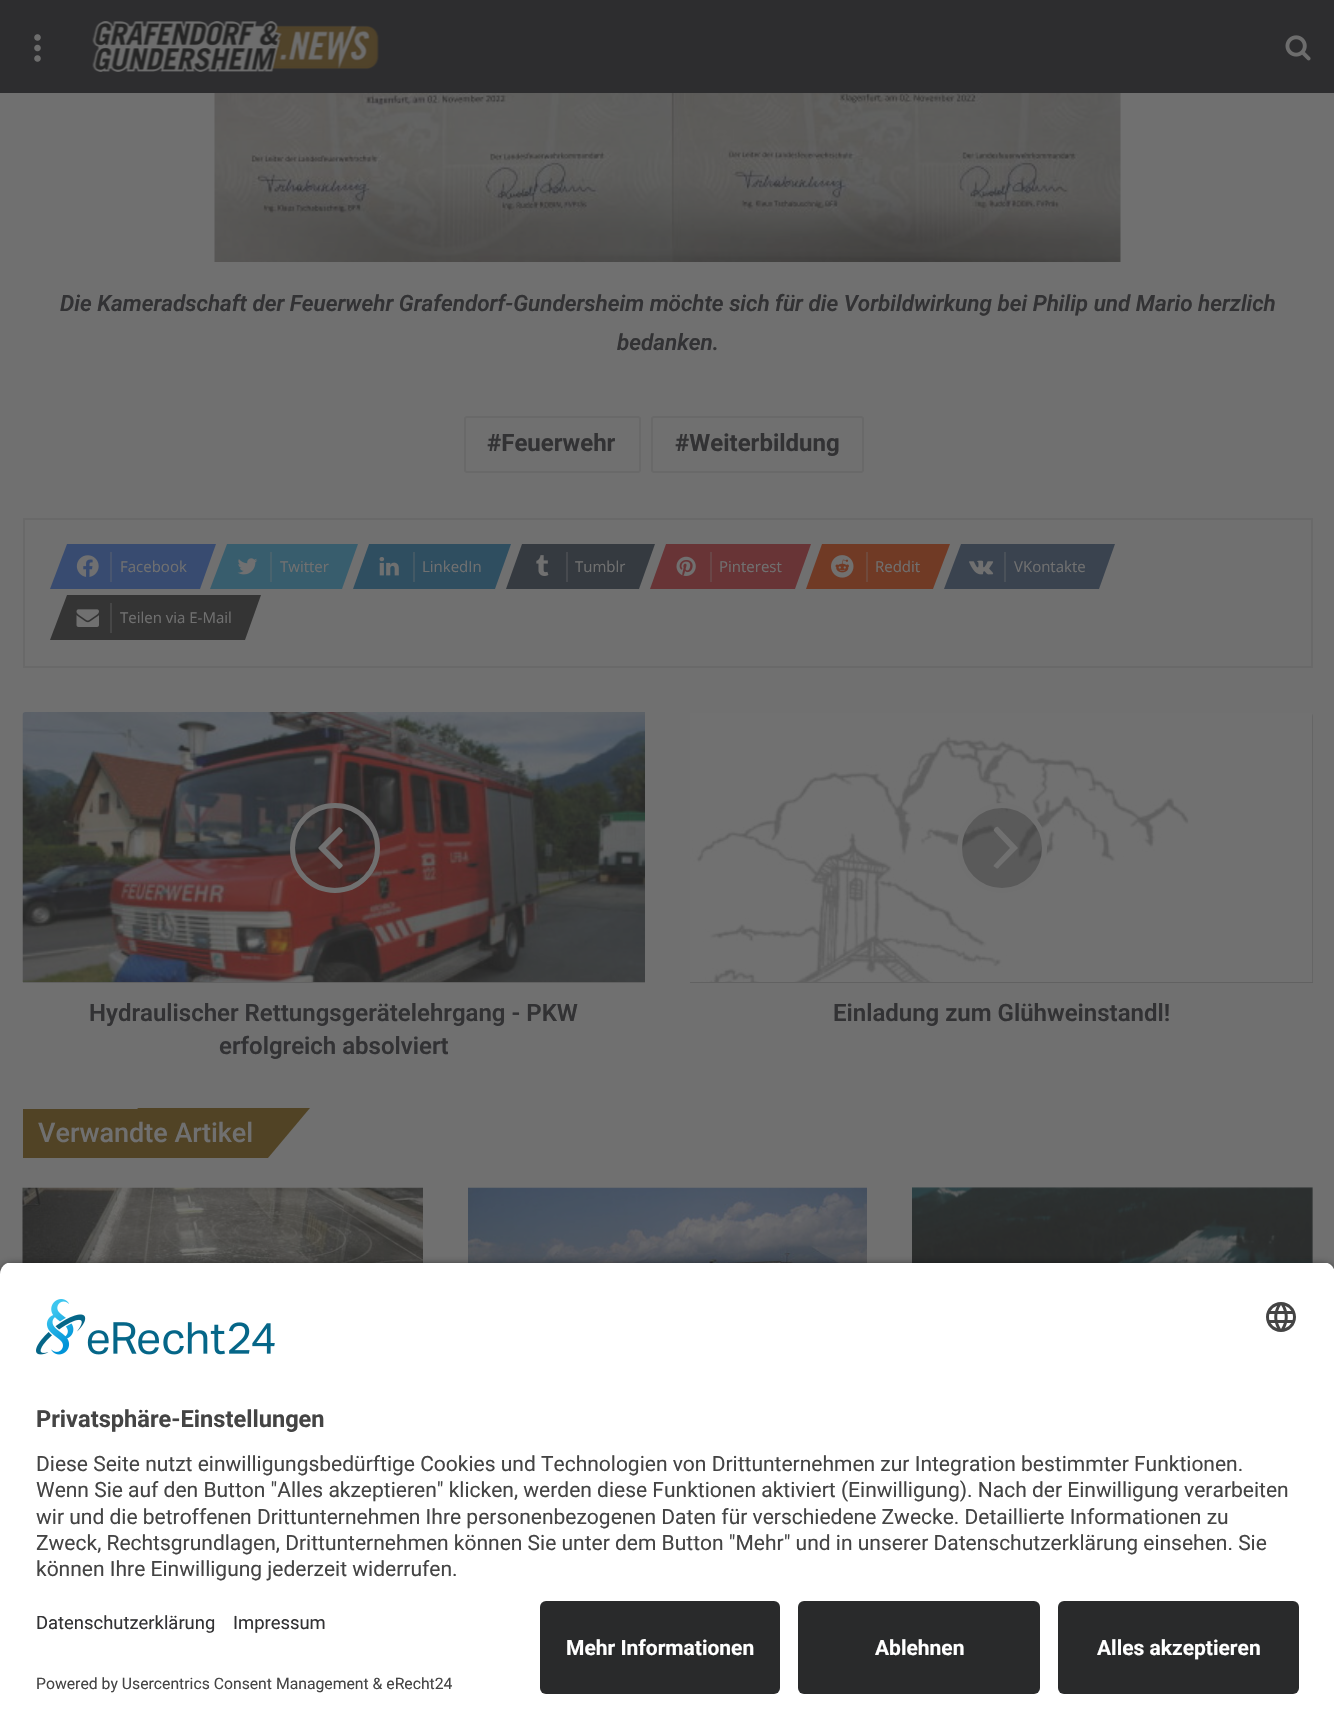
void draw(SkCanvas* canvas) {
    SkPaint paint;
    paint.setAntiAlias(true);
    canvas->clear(0xFF707070);
    paint.setColor(0xFF2D2D2F);
    canvas->drawRect(SkRect::MakeXYWH(0, 0, 1334, 93), paint);
    canvas->drawImageRect(SkImages::DeferredFromEncodedData(SkData::MakeFromFileName("img1.png")), SkRect::MakeXYWH(34, 34, 7, 28), SkSamplingOptions());
    canvas->drawImageRect(SkImages::DeferredFromEncodedData(SkData::MakeFromFileName("img2.png")), SkRect::MakeXYWH(92, 21, 287, 51), SkSamplingOptions());
    canvas->drawImageRect(SkImages::DeferredFromEncodedData(SkData::MakeFromFileName("img3.png")), SkRect::MakeXYWH(1285, 35, 26, 26), SkSamplingOptions());
    canvas->drawImageRect(SkImages::DeferredFromEncodedData(SkData::MakeFromFileName("img4.png")), SkRect::MakeXYWH(214, 93, 907, 169), SkSamplingOptions());
    SkFont font1(fontMgr->matchFamilyStyle("Roboto", SkFontStyle(600, SkFontStyle::kNormal_Width, SkFontStyle::kItalic_Slant)), 22.5f);
    font1.setSubpixel(true);
    paint.setColor(0xFF323234);
    canvas->drawString("Die Kameradschaft der Feuerwehr Grafendorf-Gundersheim möchte sich für die Vorbildwirkung bei Philip und Mario herzlich", 60, 311, font1, paint);
    canvas->drawString("bedanken.", 617, 350, font1, paint);
    paint.setStyle(SkPaint::kStroke_Style);
    paint.setStrokeWidth(2);
    paint.setColor(0x1A252525);
    canvas->drawRoundRect(SkRect::MakeXYWH(465, 417, 175, 55), 2, 2, paint);
    SkFont font2(fontMgr->matchFamilyStyle("Roboto", SkFontStyle::Bold()), 24);
    font2.setSubpixel(true);
    paint.setStyle(SkPaint::kFill_Style);
    paint.setColor(0xFF323234);
    canvas->drawString("#Feuerwehr", 487, 451, font2, paint);
    paint.setStyle(SkPaint::kStroke_Style);
    paint.setColor(0x1A252525);
    canvas->drawRoundRect(SkRect::MakeXYWH(652, 417, 211, 55), 2, 2, paint);
    paint.setStyle(SkPaint::kFill_Style);
    paint.setColor(0xFF323234);
    canvas->drawString("#Weiterbildung", 675, 451, font2, paint);
    paint.setStyle(SkPaint::kStroke_Style);
    paint.setColor(0xFF696969);
    canvas->drawRect(SkRect::MakeXYWH(24, 519, 1288, 148), paint);
    paint.setStyle(SkPaint::kFill_Style);
    paint.setColor(0xFF384B70);
    canvas->drawPath(SkPathBuilder().moveTo(67, 544).lineTo(216, 544).lineTo(200, 589).lineTo(50, 589).close().detach(), paint);
    canvas->drawImageRect(SkImages::DeferredFromEncodedData(SkData::MakeFromFileName("img5.png")), SkRect::MakeXYWH(76, 555, 23, 22), SkSamplingOptions());
    paint.setColor(0xFF495670);
    canvas->drawRect(SkRect::MakeXYWH(110, 552, 2, 30), paint);
    SkFont font3(fontMgr->matchFamilyStyle("Open Sans", SkFontStyle::Normal()), 15);
    font3.setSubpixel(true);
    paint.setColor(0xFF707070);
    canvas->drawString("Facebook", 120, 572, font3, paint);
    paint.setColor(0xFF385D6D);
    canvas->drawPath(SkPathBuilder().moveTo(227, 544).lineTo(358, 544).lineTo(342, 589).lineTo(210, 589).close().detach(), paint);
    canvas->drawImageRect(SkImages::DeferredFromEncodedData(SkData::MakeFromFileName("img6.png")), SkRect::MakeXYWH(237, 558, 21, 17), SkSamplingOptions());
    paint.setColor(0xFF49636E);
    canvas->drawRect(SkRect::MakeXYWH(270, 552, 2, 30), paint);
    paint.setColor(0xFF707070);
    canvas->drawString("Twitter", 280, 572, font3, paint);
    paint.setColor(0xFF2F4E60);
    canvas->drawPath(SkPathBuilder().moveTo(369, 544).lineTo(511, 544).lineTo(495, 589).lineTo(353, 589).close().detach(), paint);
    canvas->drawImageRect(SkImages::DeferredFromEncodedData(SkData::MakeFromFileName("img7.png")), SkRect::MakeXYWH(379, 557, 20, 19), SkSamplingOptions());
    paint.setColor(0xFF435965);
    canvas->drawRect(SkRect::MakeXYWH(413, 552, 2, 30), paint);
    paint.setColor(0xFF707070);
    canvas->drawString("LinkedIn", 422, 572, font3, paint);
    paint.setColor(0xFF353A40);
    canvas->drawPath(SkPathBuilder().moveTo(522, 544).lineTo(655, 544).lineTo(639, 589).lineTo(506, 589).close().detach(), paint);
    canvas->drawImageRect(SkImages::DeferredFromEncodedData(SkData::MakeFromFileName("img8.png")), SkRect::MakeXYWH(536, 555, 13, 21), SkSamplingOptions());
    paint.setColor(0xFF474A4F);
    canvas->drawRect(SkRect::MakeXYWH(566, 552, 2, 30), paint);
    paint.setColor(0xFF707070);
    canvas->drawString("Tumblr", 575, 572, font3, paint);
    paint.setColor(0xFF683436);
    canvas->drawPath(SkPathBuilder().moveTo(666, 544).lineTo(811, 544).lineTo(795, 589).lineTo(650, 589).close().detach(), paint);
    canvas->drawImageRect(SkImages::DeferredFromEncodedData(SkData::MakeFromFileName("img9.png")), SkRect::MakeXYWH(676, 556, 20, 20), SkSamplingOptions());
    paint.setColor(0xFF6A4647);
    canvas->drawRect(SkRect::MakeXYWH(710, 552, 2, 30), paint);
    paint.setColor(0xFF707070);
    canvas->drawString("Pinterest", 719, 572, font3, paint);
    paint.setColor(0xFF703A25);
    canvas->drawPath(SkPathBuilder().moveTo(822, 544).lineTo(950, 544).lineTo(933, 589).lineTo(806, 589).close().detach(), paint);
    canvas->drawImageRect(SkImages::DeferredFromEncodedData(SkData::MakeFromFileName("img10.png")), SkRect::MakeXYWH(831, 555, 23, 23), SkSamplingOptions());
    paint.setColor(0xFF704A3C);
    canvas->drawRect(SkRect::MakeXYWH(866, 552, 2, 30), paint);
    paint.setColor(0xFF707070);
    canvas->drawString("Reddit", 875, 572, font3, paint);
    paint.setColor(0xFF3A434F);
    canvas->drawPath(SkPathBuilder().moveTo(961, 544).lineTo(1115, 544).lineTo(1099, 589).lineTo(944, 589).close().detach(), paint);
    canvas->drawImageRect(SkImages::DeferredFromEncodedData(SkData::MakeFromFileName("img11.png")), SkRect::MakeXYWH(969, 560, 25, 15), SkSamplingOptions());
    paint.setColor(0xFF4A5159);
    canvas->drawRect(SkRect::MakeXYWH(1004, 552, 2, 30), paint);
    paint.setColor(0xFF707070);
    canvas->drawString("VKontakte", 1014, 572, font3, paint);
    paint.setColor(0xFF343434);
    canvas->drawPath(SkPathBuilder().moveTo(67, 595).lineTo(261, 595).lineTo(245, 640).lineTo(50, 640).close().detach(), paint);
    canvas->drawImageRect(SkImages::DeferredFromEncodedData(SkData::MakeFromFileName("img12.png")), SkRect::MakeXYWH(76, 609, 23, 18), SkSamplingOptions());
    paint.setColor(0xFF464646);
    canvas->drawRect(SkRect::MakeXYWH(110, 603, 2, 30), paint);
    paint.setColor(0xFF707070);
    canvas->drawString("Teilen via E-Mail", 120, 623, font3, paint);
    paint.setColor(0xFF616161);
    canvas->drawPath(SkPathBuilder().moveTo(26, 713).lineTo(645, 713).lineTo(645, 983).lineTo(23, 983).lineTo(23, 716).cubicTo(23, 714.5f, 24.5f, 713, 26, 713).close().detach(), paint);
    canvas->drawImageRect(SkImages::DeferredFromEncodedData(SkData::MakeFromFileName("img13.png")), SkRect::MakeXYWH(22, 712, 623, 270), SkSamplingOptions());
    paint.setColor(0x4D252525);
    canvas->drawCircle(335, 848, 42.5f, paint);
    paint.setStyle(SkPaint::kStroke_Style);
    paint.setStrokeWidth(5);
    paint.setColor(0xFF707070);
    canvas->drawCircle(335, 848, 42.5f, paint);
    canvas->drawImageRect(SkImages::DeferredFromEncodedData(SkData::MakeFromFileName("img14.png")), SkRect::MakeXYWH(318, 827, 25, 42), SkSamplingOptions());
    SkFont font4(fontMgr->matchFamilyStyle("Roboto", SkFontStyle(600, SkFontStyle::kNormal_Width, SkFontStyle::kUpright_Slant)), 24);
    font4.setSubpixel(true);
    paint.setStyle(SkPaint::kFill_Style);
    paint.setColor(0xFF323234);
    canvas->drawString("Hydraulischer Rettungsgerätelehrgang - PKW", 89, 1021, font4, paint);
    canvas->drawString("erfolgreich absolviert", 219, 1054, font4, paint);
    paint.setColor(0xFF616161);
    canvas->drawPath(SkPathBuilder().moveTo(690, 713).lineTo(1310, 713).cubicTo(1311.5f, 713, 1313, 714.5f, 1313, 716).lineTo(1313, 983).lineTo(690, 983).close().detach(), paint);
    canvas->drawImageRect(SkImages::DeferredFromEncodedData(SkData::MakeFromFileName("img15.png")), SkRect::MakeXYWH(690, 713, 623, 269), SkSamplingOptions());
    paint.setColor(0x4D252525);
    canvas->drawCircle(1002, 848, 42.5f, paint);
    paint.setStyle(SkPaint::kStroke_Style);
    paint.setColor(0xFF707070);
    canvas->drawCircle(1002, 848, 42.5f, paint);
    paint.setStyle(SkPaint::kFill_Style);
    canvas->drawPath(SkPathBuilder().moveTo(1018, 848).lineTo(1001, 865).cubicTo(998, 868, 998, 870, 995, 867).cubicTo(994, 867, 993, 866, 994, 865).lineTo(1010, 848).lineTo(994, 831).cubicTo(993, 830, 996, 826, 998, 827).close().detach(), paint);
    paint.setColor(0xFF323234);
    canvas->drawString("Einladung zum Glühweinstandl!", 833, 1021, font4, paint);
    paint.setColor(0xFF514325);
    canvas->drawRect(SkRect::MakeXYWH(23, 1109, 115, 49), paint);
    canvas->drawPath(SkPathBuilder().moveTo(138, 1108).lineTo(310, 1108).lineTo(268, 1158).lineTo(96, 1158).close().detach(), paint);
    SkFont font5(fontMgr->matchFamilyStyle("Roboto", SkFontStyle(500, SkFontStyle::kNormal_Width, SkFontStyle::kUpright_Slant)), 27);
    font5.setSubpixel(true);
    paint.setColor(0xFF707070);
    canvas->drawString("Verwandte Artikel", 38, 1142, font5, paint);
    canvas->drawImageRect(SkImages::DeferredFromEncodedData(SkData::MakeFromFileName("img16.png")), SkRect::MakeXYWH(22, 1187, 401, 76), SkSamplingOptions());
    canvas->drawImageRect(SkImages::DeferredFromEncodedData(SkData::MakeFromFileName("img17.png")), SkRect::MakeXYWH(468, 1187, 399, 76), SkSamplingOptions());
    canvas->drawImageRect(SkImages::DeferredFromEncodedData(SkData::MakeFromFileName("img18.png")), SkRect::MakeXYWH(912, 1187, 401, 76), SkSamplingOptions());
    paint.setColor(0xCC000000);
    paint.setMaskFilter(SkMaskFilter::MakeBlur(kNormal_SkBlurStyle, 5));
    canvas->drawRoundRect(SkRect::MakeXYWH(0, 1266, 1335, 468), 12, 12, paint);
    paint.setMaskFilter(nullptr);
    canvas->save();
    canvas->clipPath(SkPathBuilder().moveTo(12, 1262).lineTo(1323, 1262).cubicTo(1329.5f, 1262, 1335, 1267.5f, 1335, 1274).lineTo(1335, 1589).lineTo(0, 1589).lineTo(0, 1274).cubicTo(0, 1267.5f, 5.5f, 1262, 12, 1262).close().detach(), true);
    paint.setColor(0xFFFFFFFF);
    canvas->drawRect(SkRect::MakeXYWH(0, 1263, 1334, 326), paint);
    canvas->restore();
    canvas->drawImageRect(SkImages::DeferredFromEncodedData(SkData::MakeFromFileName("img19.png")), SkRect::MakeXYWH(36, 1299, 239, 56), SkSamplingOptions());
    canvas->drawImageRect(SkImages::DeferredFromEncodedData(SkData::MakeFromFileName("img20.png")), SkRect::MakeXYWH(1266, 1302, 30, 30), SkSamplingOptions());
    SkFont font6(fontMgr->matchFamilyStyle("Roboto", SkFontStyle::Bold()), 23.6f);
    font6.setSubpixel(true);
    paint.setColor(0xFF444444);
    canvas->drawString("Privatsphäre-Einstellungen", 36, 1427, font6, paint);
    SkFont font7(fontMgr->matchFamilyStyle("Roboto", SkFontStyle::Normal()), 21);
    font7.setSubpixel(true);
    canvas->drawString("Diese Seite nutzt einwilligungsbedürftige Cookies und Technologien von Drittunternehmen zur Integration bestimmter Funktionen.", 36, 1471, font7, paint);
    canvas->drawString("Wenn Sie auf den Button \"Alles akzeptieren\" klicken, werden diese Funktionen aktiviert (Einwilligung). Nach der Einwilligung verarbeiten", 36, 1497, font7, paint);
    canvas->drawString("wir und die betroffenen Drittunternehmen Ihre personenbezogenen Daten für verschiedene Zwecke. Detaillierte Informationen zu", 36, 1524, font7, paint);
    canvas->drawString("Zweck, Rechtsgrundlagen, Drittunternehmen können Sie unter dem Button \"Mehr\" und in unserer Datenschutzerklärung einsehen. Sie", 36, 1550, font7, paint);
    canvas->drawString("können Ihre Einwilligung jederzeit widerrufen.", 36, 1576, font7, paint);
    paint.setColor(0xFFFFFFFF);
    canvas->drawRect(SkRect::MakeXYWH(0, 1589, 1334, 140), paint);
    SkFont font8(fontMgr->matchFamilyStyle("Roboto", SkFontStyle::Normal()), 18.4f);
    font8.setSubpixel(true);
    paint.setColor(0xFF323234);
    canvas->drawString("Datenschutzerklärung", 36, 1629, font8, paint);
    canvas->drawString("Impressum", 233, 1629, font8, paint);
    SkFont font9(fontMgr->matchFamilyStyle("Roboto", SkFontStyle::Normal()), 15.75f);
    font9.setSubpixel(true);
    paint.setColor(0xFF444444);
    canvas->drawString("Powered by Usercentrics Consent Management & eRecht24", 36, 1689, font9, paint);
    paint.setColor(0xFF292A2B);
    canvas->drawRoundRect(SkRect::MakeXYWH(540, 1601, 240, 93), 6, 6, paint);
    SkFont font10(fontMgr->matchFamilyStyle("Roboto", SkFontStyle::Bold()), 21);
    font10.setSubpixel(true);
    paint.setColor(0xFFFFFFFF);
    canvas->drawString("Mehr Informationen", 566, 1655, font10, paint);
    paint.setColor(0xFF292A2B);
    canvas->drawRoundRect(SkRect::MakeXYWH(798, 1601, 242, 93), 6, 6, paint);
    paint.setColor(0xFFFFFFFF);
    canvas->drawString("Ablehnen", 875, 1655, font10, paint);
    paint.setColor(0xFF292A2B);
    canvas->drawRoundRect(SkRect::MakeXYWH(1058, 1601, 241, 93), 6, 6, paint);
    paint.setColor(0xFFFFFFFF);
    canvas->drawString("Alles akzeptieren", 1097, 1655, font10, paint);
}
